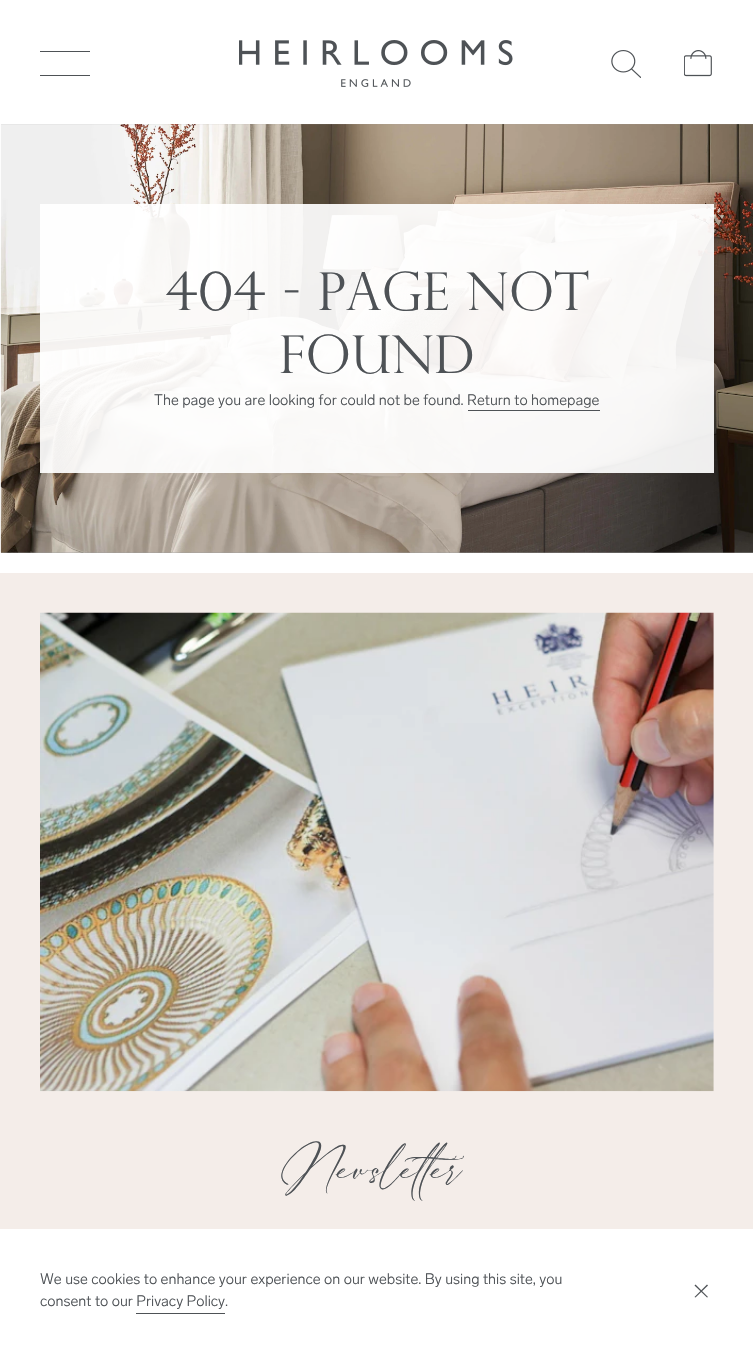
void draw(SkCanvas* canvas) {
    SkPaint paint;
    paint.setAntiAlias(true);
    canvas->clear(0xFFFFFFFF);
    paint.setColor(0xFF4E5256);
    canvas->drawRect(SkRect::MakeXYWH(40, 51, 50, 1), paint);
    canvas->drawRect(SkRect::MakeXYWH(40, 75, 50, 1), paint);
    canvas->drawImageRect(SkImages::DeferredFromEncodedData(SkData::MakeFromFileName("img1.png")), SkRect::MakeXYWH(239, 40, 274, 47), SkSamplingOptions());
    canvas->drawImageRect(SkImages::DeferredFromEncodedData(SkData::MakeFromFileName("img2.png")), SkRect::MakeXYWH(611, 50, 30, 28), SkSamplingOptions());
    canvas->drawImageRect(SkImages::DeferredFromEncodedData(SkData::MakeFromFileName("img3.png")), SkRect::MakeXYWH(684, 50, 28, 27), SkSamplingOptions());
    paint.setColor(0xFF9D9D9D);
    canvas->drawRect(SkRect::MakeXYWH(1, 124, 752, 429), paint);
    canvas->drawImageRect(SkImages::DeferredFromEncodedData(SkData::MakeFromFileName("img4.png")), SkRect::MakeXYWH(0, 124, 753, 429), SkSamplingOptions());
    paint.setColor(0xEBFFFFFF);
    canvas->drawRect(SkRect::MakeXYWH(40, 204, 674, 269), paint);
    SkFont font1(fontMgr->matchFamilyStyle("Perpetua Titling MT", SkFontStyle(300, SkFontStyle::kNormal_Width, SkFontStyle::kUpright_Slant)), 52.25f);
    font1.setSubpixel(true);
    paint.setColor(0xFF4E5256);
    canvas->drawString("404 - PAGE NOT", 165, 310, font1, paint);
    canvas->drawString("FOUND", 279, 373, font1, paint);
    SkFont font2(fontMgr->matchFamilyStyle("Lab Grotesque", SkFontStyle(300, SkFontStyle::kNormal_Width, SkFontStyle::kUpright_Slant)), 15);
    font2.setSubpixel(true);
    canvas->drawString("The page you are looking for could not be found. Return to homepage", 154, 405, font2, paint);
    canvas->drawRect(SkRect::MakeXYWH(468, 410, 132, 1), paint);
    paint.setColor(0xFFF4EDE9);
    canvas->drawRect(SkRect::MakeXYWH(0, 573, 753, 656), paint);
    canvas->drawImageRect(SkImages::DeferredFromEncodedData(SkData::MakeFromFileName("img5.png")), SkRect::MakeXYWH(40, 612, 674, 480), SkSamplingOptions());
    SkFont font3(fontMgr->matchFamilyStyle("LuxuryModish", SkFontStyle::Normal()), 28);
    font3.setSubpixel(true);
    paint.setColor(0xFF4E5256);
    canvas->drawString("Newsletter", 291, 1178, font3, paint);
    canvas->drawString("We use cookies to enhance your experience on our website. By using this site, you", 40, 1284, font2, paint);
    canvas->drawString("consent to our Privacy Policy", 40, 1306, font2, paint);
    canvas->drawString(".", 225, 1306, font2, paint);
    canvas->drawRect(SkRect::MakeXYWH(136, 1313, 89, 1), paint);
    canvas->drawPath(SkPathBuilder().moveTo(694.5f, 1297).lineTo(707, 1284.5f).lineTo(708, 1285.5f).lineTo(695.5f, 1297.5f).close().detach(), paint);
    canvas->drawPath(SkPathBuilder().moveTo(695.5f, 1284.5f).lineTo(708, 1297).lineTo(707, 1297.5f).lineTo(694.5f, 1285.5f).close().detach(), paint);
}
